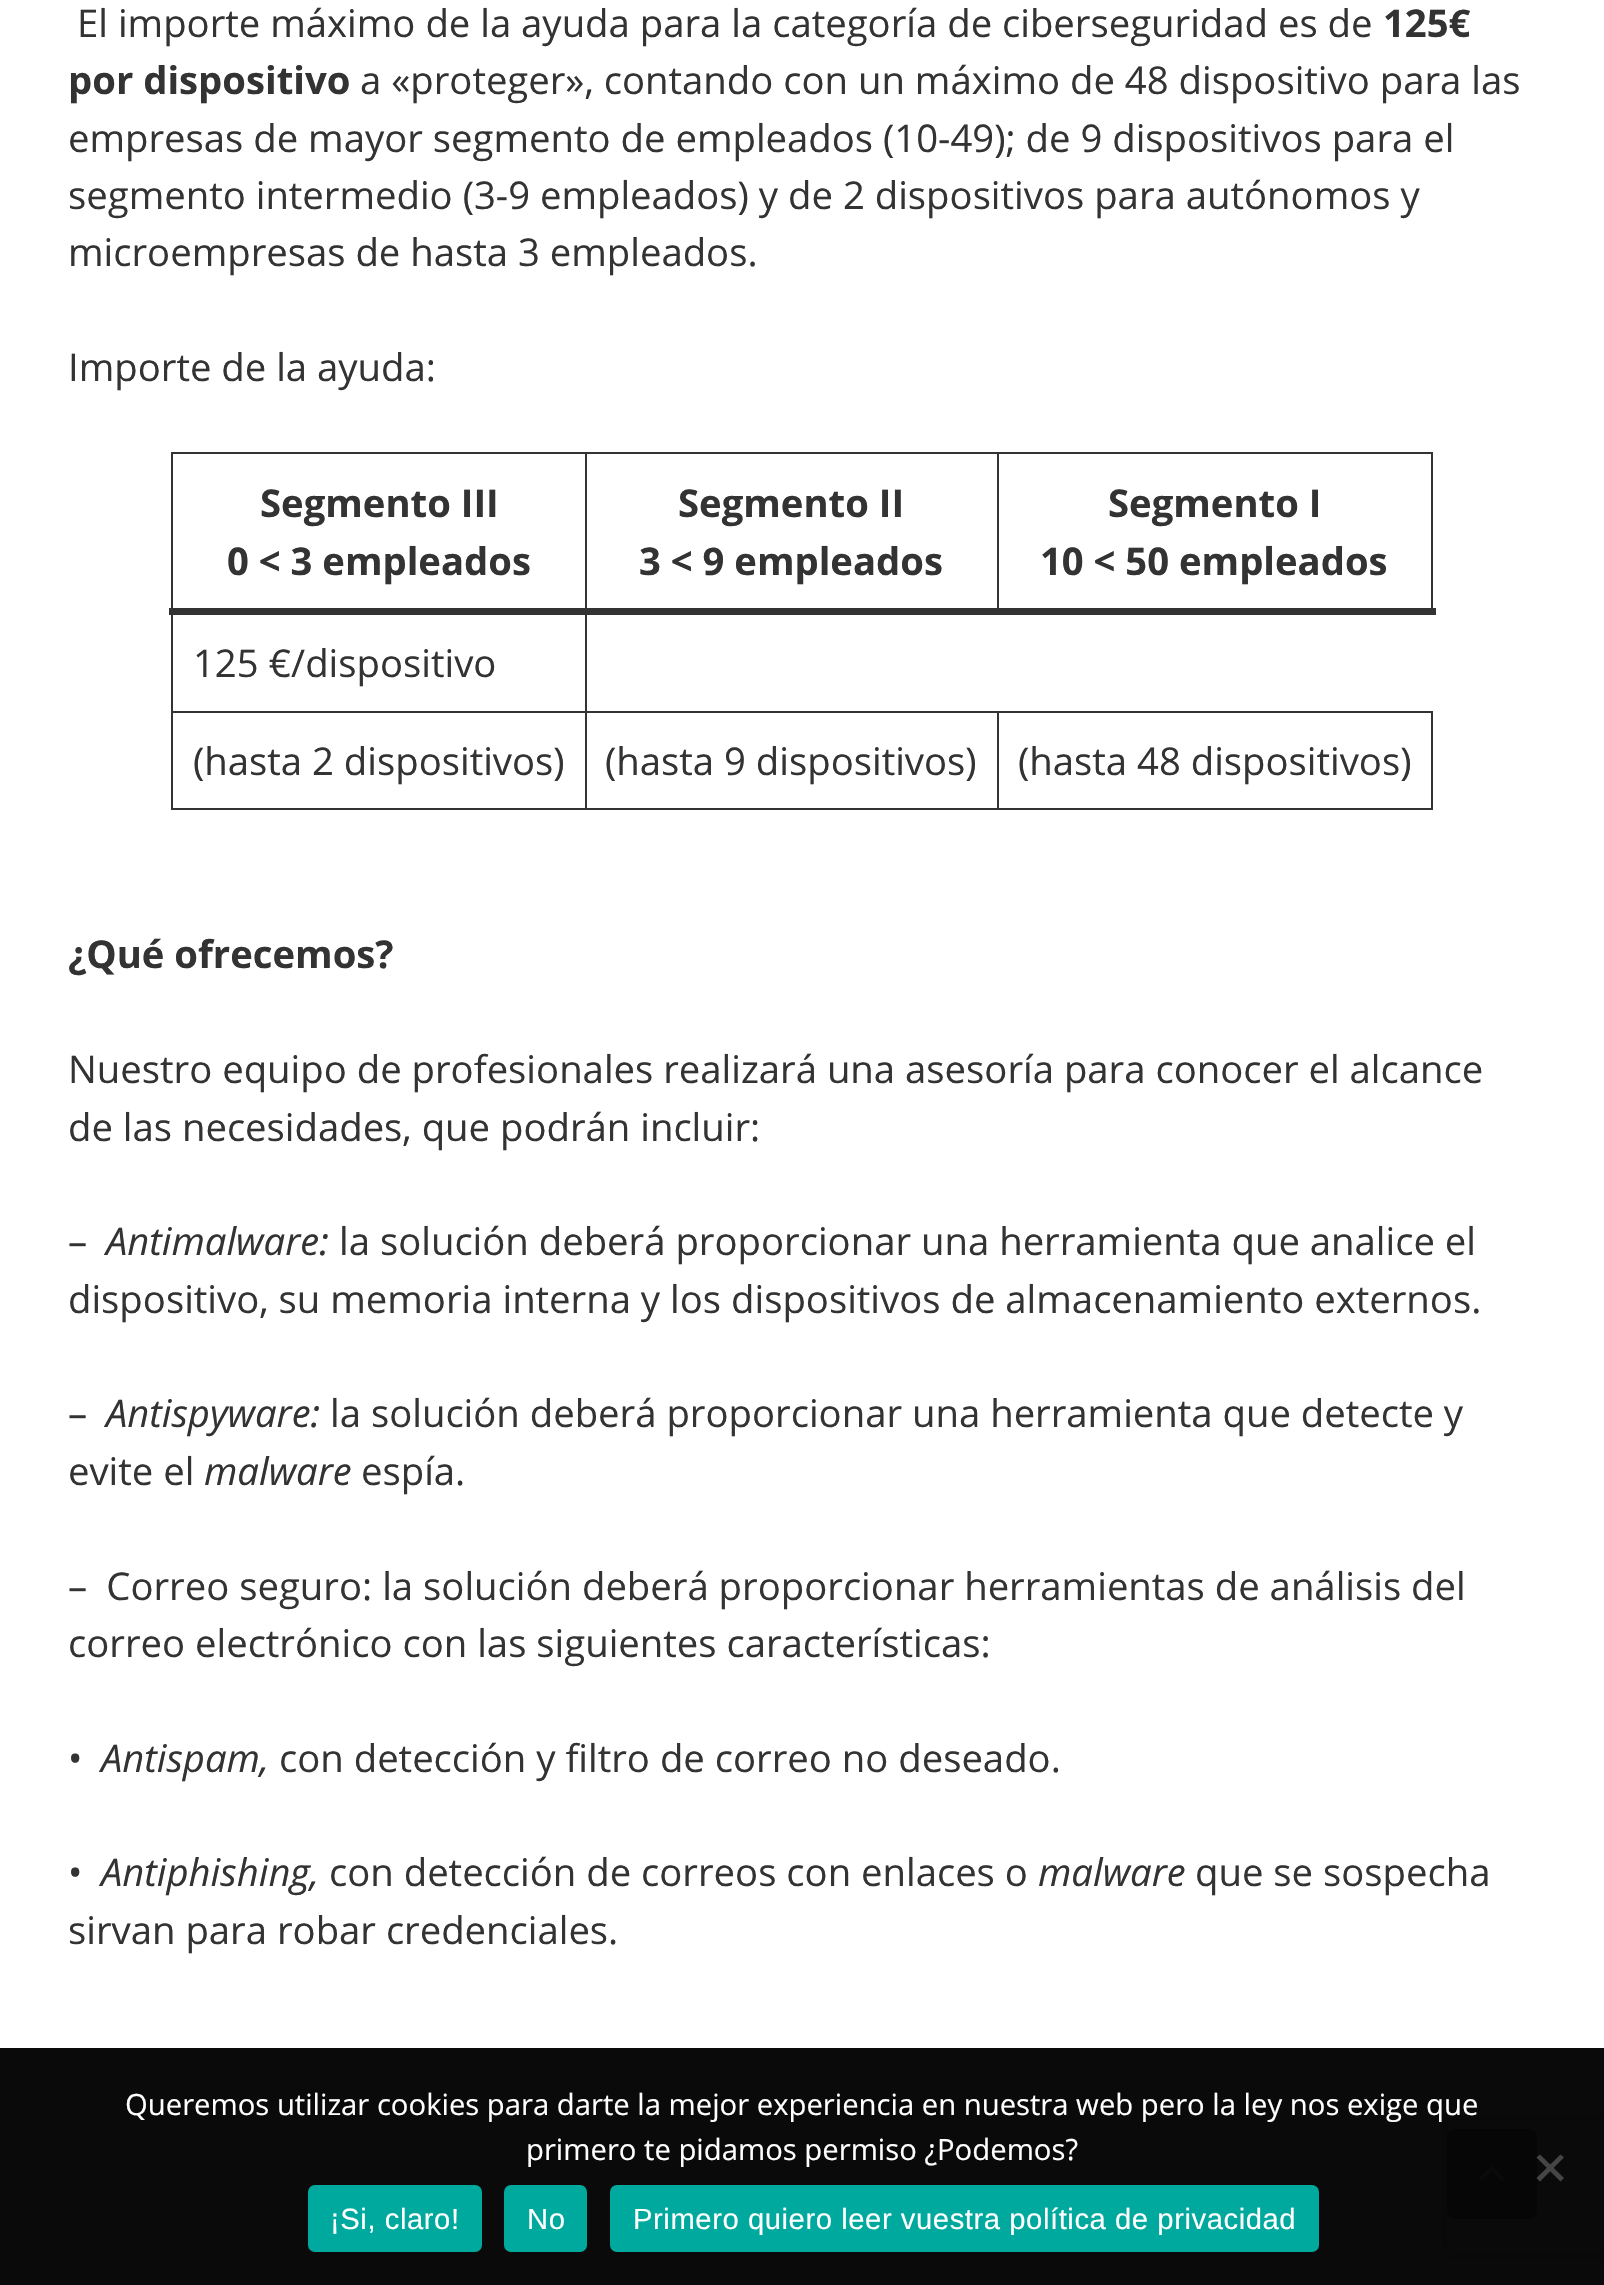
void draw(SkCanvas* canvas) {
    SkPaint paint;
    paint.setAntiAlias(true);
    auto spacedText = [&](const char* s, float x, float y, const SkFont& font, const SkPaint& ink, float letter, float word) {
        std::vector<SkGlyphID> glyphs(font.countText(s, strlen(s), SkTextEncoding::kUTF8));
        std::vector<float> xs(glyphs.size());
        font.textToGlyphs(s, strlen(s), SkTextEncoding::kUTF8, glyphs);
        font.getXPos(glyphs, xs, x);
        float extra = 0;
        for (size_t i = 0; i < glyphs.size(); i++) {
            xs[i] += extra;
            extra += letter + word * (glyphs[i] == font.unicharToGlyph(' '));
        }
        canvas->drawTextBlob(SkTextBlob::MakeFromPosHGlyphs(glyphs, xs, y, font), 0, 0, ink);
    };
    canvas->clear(0xFFFFFFFF);
    SkFont font1(fontMgr->matchFamilyStyle("Open Sans", SkFontStyle::Normal()), 38.25f);
    font1.setSubpixel(true);
    paint.setColor(0xFF333333);
    canvas->drawString("El importe máximo de la ayuda para la categoría de ciberseguridad es de", 77, 37, font1, paint);
    SkFont font2(fontMgr->matchFamilyStyle("Open Sans", SkFontStyle::Bold()), 38.25f);
    font2.setSubpixel(true);
    canvas->drawString("125€", 1383, 37, font2, paint);
    canvas->drawString("por dispositivo", 68, 94, font2, paint);
    canvas->drawString("a «proteger», contando con un máximo de 48 dispositivo para las", 360, 94, font1, paint);
    canvas->drawString("empresas de mayor segmento de empleados (10-49); de 9 dispositivos para el", 68, 152, font1, paint);
    canvas->drawString("segmento intermedio (3-9 empleados) y de 2 dispositivos para autónomos y", 68, 209, font1, paint);
    canvas->drawString("microempresas de hasta 3 empleados.", 68, 266, font1, paint);
    canvas->drawString("Importe de la ayuda:", 68, 381, font1, paint);
    canvas->drawRect(SkRect::MakeXYWH(997, 452, 436, 2), paint);
    canvas->drawRect(SkRect::MakeXYWH(997, 452, 2, 160), paint);
    canvas->drawRect(SkRect::MakeXYWH(585, 452, 414, 2), paint);
    canvas->drawRect(SkRect::MakeXYWH(997, 711, 436, 2), paint);
    canvas->drawRect(SkRect::MakeXYWH(1431, 711, 2, 99), paint);
    canvas->drawRect(SkRect::MakeXYWH(997, 808, 436, 2), paint);
    canvas->drawRect(SkRect::MakeXYWH(997, 711, 2, 99), paint);
    canvas->drawRect(SkRect::MakeXYWH(585, 711, 414, 2), paint);
    canvas->drawRect(SkRect::MakeXYWH(585, 808, 414, 2), paint);
    canvas->drawRect(SkRect::MakeXYWH(585, 711, 2, 99), paint);
    canvas->drawRect(SkRect::MakeXYWH(171, 711, 416, 2), paint);
    canvas->drawRect(SkRect::MakeXYWH(585, 610, 2, 103), paint);
    canvas->drawRect(SkRect::MakeXYWH(585, 452, 2, 160), paint);
    canvas->drawRect(SkRect::MakeXYWH(171, 452, 416, 2), paint);
    canvas->drawRect(SkRect::MakeXYWH(171, 808, 416, 2), paint);
    canvas->drawRect(SkRect::MakeXYWH(171, 610, 2, 200), paint);
    canvas->drawRect(SkRect::MakeXYWH(171, 452, 2, 160), paint);
    canvas->drawRect(SkRect::MakeXYWH(1431, 452, 2, 160), paint);
    canvas->drawRect(SkRect::MakeXYWH(169, 608, 1267, 7), paint);
    canvas->drawString("Segmento III", 260, 517, font2, paint);
    canvas->drawString("0 < 3 empleados", 227, 575, font2, paint);
    canvas->drawString("Segmento II", 678, 517, font2, paint);
    canvas->drawString("3 < 9 empleados", 639, 575, font2, paint);
    canvas->drawString("Segmento I", 1108, 517, font2, paint);
    canvas->drawString("10 < 50 empleados", 1040, 575, font2, paint);
    canvas->drawString("125 €/dispositivo", 193, 677, font1, paint);
    canvas->drawString("(hasta 2 dispositivos)", 193, 775, font1, paint);
    canvas->drawString("(hasta 9 dispositivos)", 605, 775, font1, paint);
    canvas->drawString("(hasta 48 dispositivos)", 1018, 775, font1, paint);
    canvas->drawString("¿Qué ofrecemos?", 68, 968, font2, paint);
    canvas->drawString("Nuestro equipo de profesionales realizará una asesoría para conocer el alcance", 68, 1083, font1, paint);
    canvas->drawString("de las necesidades, que podrán incluir:", 68, 1141, font1, paint);
    canvas->drawString("–", 68, 1255, font1, paint);
    SkFont font3(fontMgr->matchFamilyStyle("Open Sans", SkFontStyle::Italic()), 38.25f);
    font3.setSubpixel(true);
    canvas->drawString("Antimalware:", 106, 1255, font3, paint);
    canvas->drawString("la solución deberá proporcionar una herramienta que analice el", 339, 1255, font1, paint);
    canvas->drawString("dispositivo, su memoria interna y los dispositivos de almacenamiento externos.", 68, 1313, font1, paint);
    canvas->drawString("–", 68, 1427, font1, paint);
    canvas->drawString("Antispyware:", 106, 1427, font3, paint);
    canvas->drawString("la solución deberá proporcionar una herramienta que detecte y", 330, 1427, font1, paint);
    canvas->drawString("evite el", 68, 1485, font1, paint);
    canvas->drawString("malware", 204, 1485, font3, paint);
    canvas->drawString("espía.", 361, 1485, font1, paint);
    canvas->drawString("– Correo seguro: la solución deberá proporcionar herramientas de análisis del", 68, 1600, font1, paint);
    canvas->drawString("correo electrónico con las siguientes características:", 68, 1657, font1, paint);
    canvas->drawString("•", 68, 1772, font1, paint);
    canvas->drawString("Antispam,", 101, 1772, font3, paint);
    canvas->drawString("con detección y filtro de correo no deseado.", 279, 1772, font1, paint);
    canvas->drawString("•", 68, 1886, font1, paint);
    canvas->drawString("Antiphishing,", 101, 1886, font3, paint);
    canvas->drawString("con detección de correos con enlaces o", 329, 1886, font1, paint);
    canvas->drawString("malware", 1038, 1886, font3, paint);
    canvas->drawString("que se sospecha", 1195, 1886, font1, paint);
    canvas->drawString("sirvan para robar credenciales.", 68, 1944, font1, paint);
    canvas->save();
    canvas->clipPath(SkPathBuilder(SkPathFillType::kEvenOdd).moveTo(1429, 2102).lineTo(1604, 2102).lineTo(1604, 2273).lineTo(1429, 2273).close().moveTo(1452, 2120).lineTo(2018, 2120).cubicTo(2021, 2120, 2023, 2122, 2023, 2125).lineTo(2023, 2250).cubicTo(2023, 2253, 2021, 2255, 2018, 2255).lineTo(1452, 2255).cubicTo(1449, 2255, 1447, 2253, 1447, 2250).lineTo(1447, 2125).cubicTo(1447, 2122, 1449, 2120, 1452, 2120).close().detach(), true);
    paint.setColor(0xFF808080);
    paint.setMaskFilter(SkMaskFilter::MakeBlur(kNormal_SkBlurStyle, 5.5f));
    canvas->drawRoundRect(SkRect::MakeXYWH(1447, 2120, 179, 135), 5, 5, paint);
    paint.setMaskFilter(nullptr);
    canvas->restore();
    paint.setColor(0xFF999999);
    canvas->drawRoundRect(SkRect::MakeXYWH(1447, 2129, 90, 90), 7, 7, paint);
    canvas->drawImageRect(SkImages::DeferredFromEncodedData(SkData::MakeFromFileName("img1.png")), SkRect::MakeXYWH(1479, 2166, 25, 15), SkSamplingOptions());
    paint.setColor(0xF5000000);
    canvas->drawRect(SkRect::MakeXYWH(0, 2048, 1604, 237), paint);
    SkFont font4(fontMgr->matchFamilyStyle("Open Sans", SkFontStyle::Normal()), 29.25f);
    font4.setSubpixel(true);
    paint.setColor(0xFFFFFFFF);
    canvas->drawString("Queremos utilizar cookies para darte la mejor experiencia en nuestra web pero la ley nos exige que", 125, 2115, font4, paint);
    canvas->drawString("primero te pidamos permiso ¿Podemos?", 526, 2160, font4, paint);
    paint.setColor(0xFF454545);
    canvas->drawPath(SkPathBuilder().moveTo(1560.5f, 2154.5f).lineTo(1564, 2157.5f).lineTo(1540, 2181.5f).lineTo(1536.5f, 2178).close().detach(), paint);
    canvas->drawPath(SkPathBuilder().moveTo(1536.5f, 2157.5f).lineTo(1540, 2154.5f).lineTo(1564, 2178).lineTo(1560.5f, 2181.5f).close().detach(), paint);
    paint.setColor(0xFF00A99D);
    canvas->drawRoundRect(SkRect::MakeXYWH(308, 2185, 174, 67), 7, 7, paint);
    SkFont font5(fontMgr->matchFamilyStyle("Liberation Sans", SkFontStyle::Normal()), 29.25f);
    font5.setSubpixel(true);
    paint.setColor(0xFFFFFFFF);
    spacedText("¡Si, claro!", 330, 2229, font5, paint, 0.55f, 0);
    paint.setColor(0xFF00A99D);
    canvas->drawRoundRect(SkRect::MakeXYWH(504, 2185, 83, 67), 7, 7, paint);
    paint.setColor(0xFFFFFFFF);
    spacedText("No", 527, 2229, font5, paint, 0.55f, 0);
    paint.setColor(0xFF00A99D);
    canvas->drawRoundRect(SkRect::MakeXYWH(610, 2185, 709, 67), 7, 7, paint);
    paint.setColor(0xFFFFFFFF);
    spacedText("Primero quiero leer vuestra política de privacidad", 633, 2229, font5, paint, 0.55f, 0);
}
